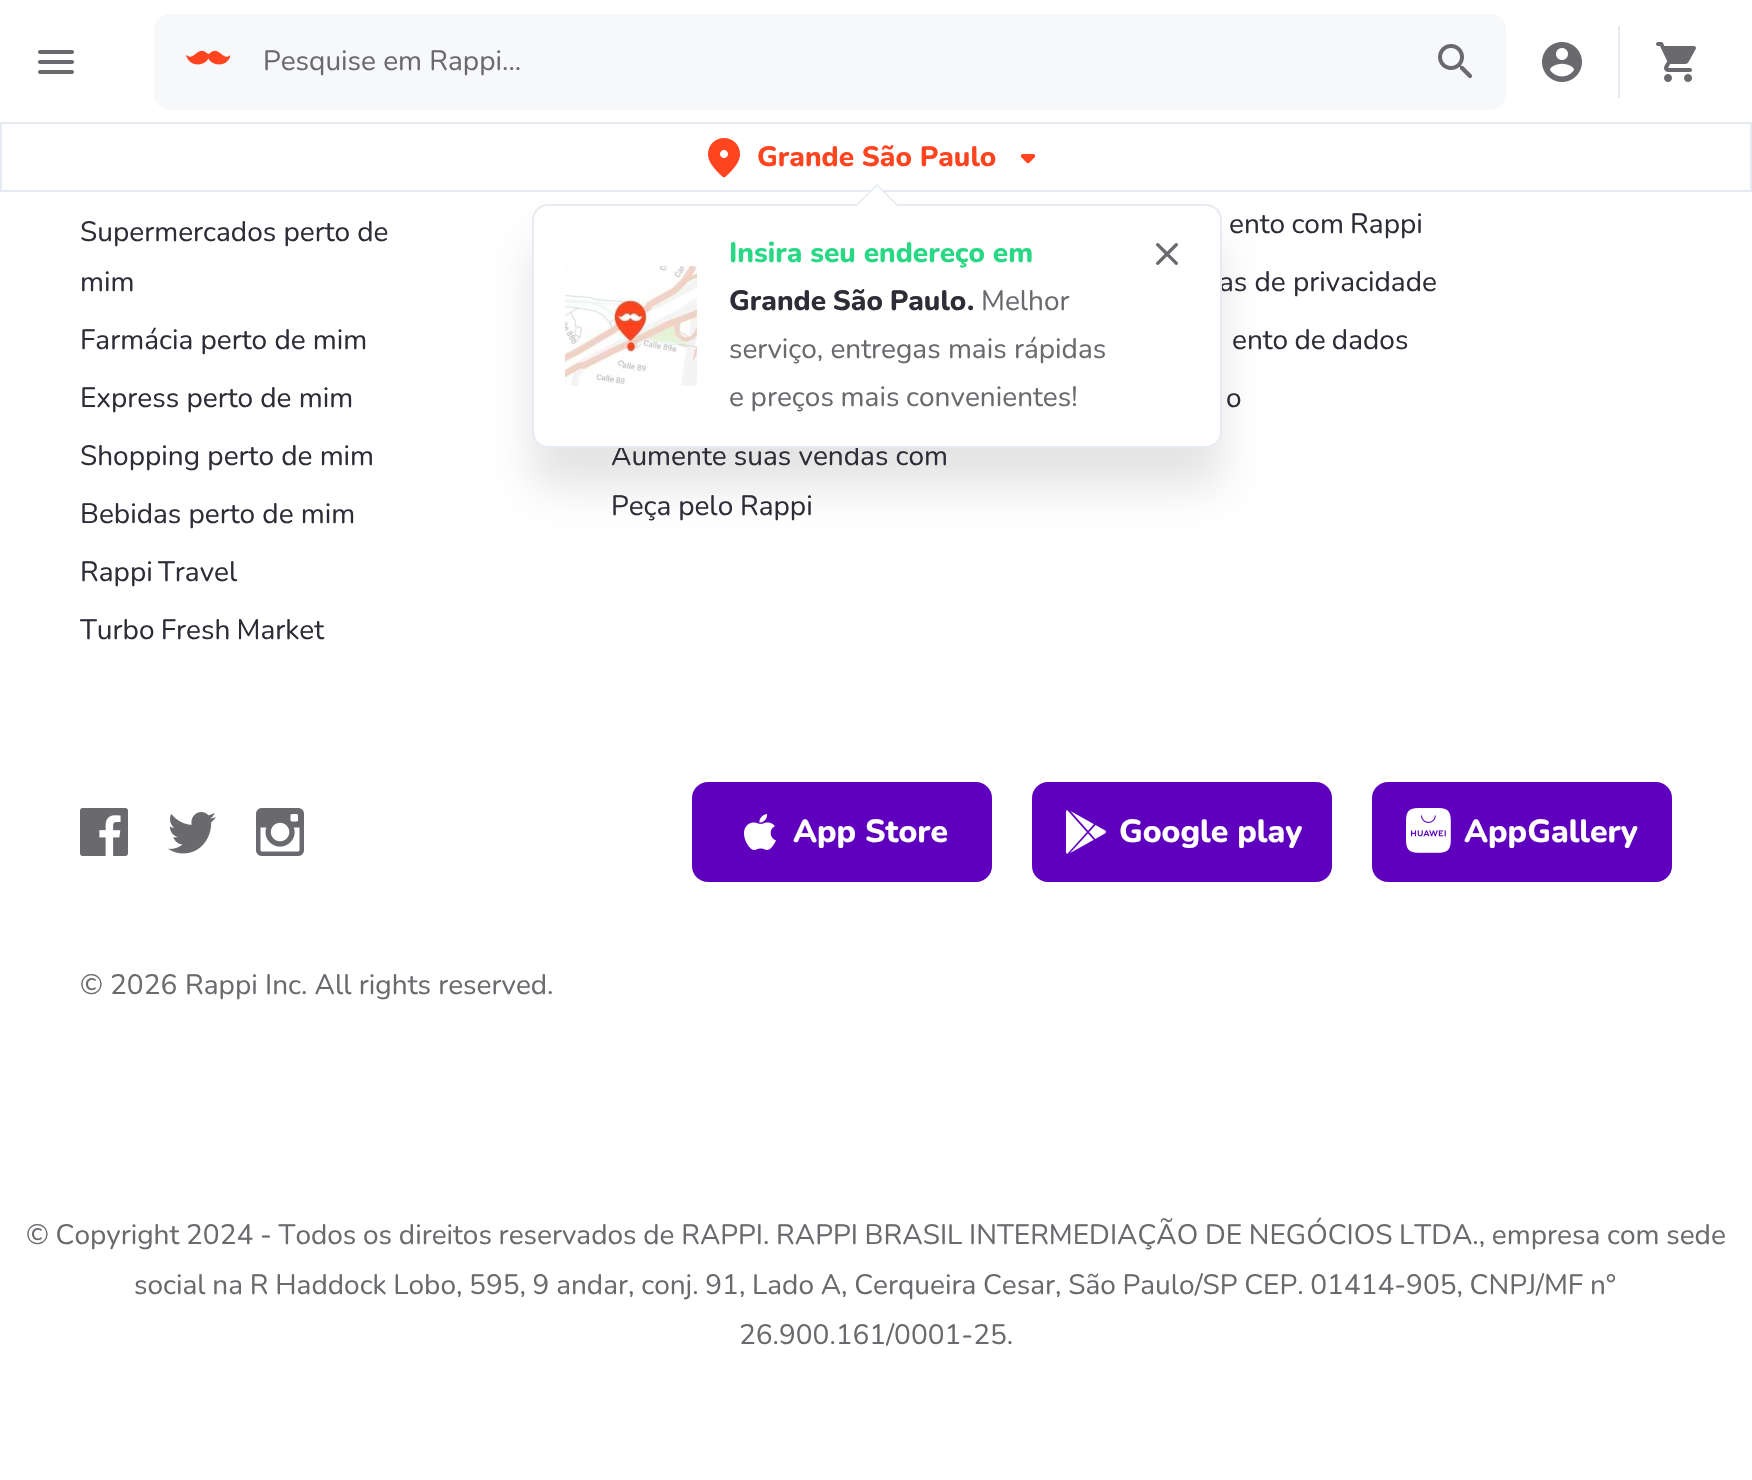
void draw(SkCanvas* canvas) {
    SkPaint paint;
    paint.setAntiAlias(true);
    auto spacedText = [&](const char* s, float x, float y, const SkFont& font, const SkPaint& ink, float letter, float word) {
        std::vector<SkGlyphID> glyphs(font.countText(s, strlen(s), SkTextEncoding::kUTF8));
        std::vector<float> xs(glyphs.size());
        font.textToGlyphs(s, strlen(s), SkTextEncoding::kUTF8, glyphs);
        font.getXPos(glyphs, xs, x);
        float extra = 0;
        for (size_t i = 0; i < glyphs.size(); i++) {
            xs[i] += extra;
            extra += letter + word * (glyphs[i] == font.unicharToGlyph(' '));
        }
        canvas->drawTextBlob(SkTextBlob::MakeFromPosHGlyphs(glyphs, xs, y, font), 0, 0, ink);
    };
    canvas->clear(0xFFFFFFFF);
    paint.setColor(0xFFE6EBF1);
    canvas->drawRect(SkRect::MakeXYWH(0, 190, 1752, 2), paint);
    canvas->drawImageRect(SkImages::DeferredFromEncodedData(SkData::MakeFromFileName("img1.png")), SkRect::MakeXYWH(38, 50, 36, 24), SkSamplingOptions());
    paint.setColor(0xFFF7F8F9);
    canvas->drawRoundRect(SkRect::MakeXYWH(154, 14, 1352, 96), 16, 16, paint);
    canvas->drawImageRect(SkImages::DeferredFromEncodedData(SkData::MakeFromFileName("img2.png")), SkRect::MakeXYWH(186, 50, 44, 15), SkSamplingOptions());
    SkFont font1(fontMgr->matchFamilyStyle("Nunito", SkFontStyle::Normal()), 28);
    font1.setSubpixel(true);
    paint.setColor(0xFF6A696E);
    canvas->drawString("Pesquise em Rappi...", 263, 70, font1, paint);
    canvas->drawImageRect(SkImages::DeferredFromEncodedData(SkData::MakeFromFileName("img3.png")), SkRect::MakeXYWH(1438, 44, 34, 35), SkSamplingOptions());
    canvas->drawImageRect(SkImages::DeferredFromEncodedData(SkData::MakeFromFileName("img4.png")), SkRect::MakeXYWH(1542, 42, 40, 40), SkSamplingOptions());
    paint.setColor(0xFFE6EBF1);
    canvas->drawRect(SkRect::MakeXYWH(1618, 26, 2, 72), paint);
    canvas->drawImageRect(SkImages::DeferredFromEncodedData(SkData::MakeFromFileName("img5.png")), SkRect::MakeXYWH(1656, 42, 40, 40), SkSamplingOptions());
    canvas->drawRect(SkRect::MakeXYWH(0, 122, 1752, 2), paint);
    canvas->drawRect(SkRect::MakeXYWH(1750, 122, 2, 68), paint);
    canvas->drawRect(SkRect::MakeXYWH(0, 122, 2, 68), paint);
    canvas->drawImageRect(SkImages::DeferredFromEncodedData(SkData::MakeFromFileName("img6.png")), SkRect::MakeXYWH(708, 138, 32, 40), SkSamplingOptions());
    SkFont font2(fontMgr->matchFamilyStyle("Nunito", SkFontStyle(800, SkFontStyle::kNormal_Width, SkFontStyle::kUpright_Slant)), 28);
    font2.setSubpixel(true);
    paint.setColor(0xFFFF441F);
    canvas->drawString("Grande São Paulo", 757, 166, font2, paint);
    canvas->drawImageRect(SkImages::DeferredFromEncodedData(SkData::MakeFromFileName("img7.png")), SkRect::MakeXYWH(1020, 154, 16, 10), SkSamplingOptions());
    paint.setColor(0x1A000000);
    paint.setMaskFilter(SkMaskFilter::MakeBlur(kNormal_SkBlurStyle, 20));
    canvas->drawRoundRect(SkRect::MakeXYWH(532, 244, 690, 244), 16, 16, paint);
    paint.setMaskFilter(nullptr);
    paint.setColor(0xFF2E2C36);
    canvas->drawString("Aumente suas vendas com", 611, 465, font1, paint);
    canvas->drawString("as de privacidade", 1219, 291, font1, paint);
    paint.setColor(0xFFFFFFFF);
    canvas->drawRoundRect(SkRect::MakeXYWH(533, 205, 688, 242), 15, 15, paint);
    paint.setStyle(SkPaint::kStroke_Style);
    paint.setStrokeWidth(2);
    paint.setColor(0xFFE6EBF1);
    canvas->drawRoundRect(SkRect::MakeXYWH(533, 205, 688, 242), 15, 15, paint);
    paint.setStyle(SkPaint::kFill_Style);
    canvas->drawPath(SkPathBuilder().moveTo(899, 206).lineTo(855, 206).lineTo(877, 184).close().detach(), paint);
    paint.setColor(0xFFFFFFFF);
    canvas->drawPath(SkPathBuilder().moveTo(897, 206).lineTo(857, 206).lineTo(877, 186).close().detach(), paint);
    canvas->drawImageRect(SkImages::DeferredFromEncodedData(SkData::MakeFromFileName("img8.png")), SkRect::MakeXYWH(565, 266, 132, 120), SkSamplingOptions());
    paint.setColor(0xFF29D884);
    canvas->drawString("Insira seu endereço em", 729, 262, font2, paint);
    paint.setColor(0xFF2E2C36);
    spacedText("Grande São Paulo", 729, 310, font2, paint, 0, -1);
    canvas->drawString(".", 967, 310, font2, paint);
    paint.setColor(0xFF6A696E);
    canvas->drawString("Melhor", 981, 310, font1, paint);
    canvas->drawString("serviço, entregas mais rápidas", 729, 358, font1, paint);
    spacedText("e preços mais convenientes!", 729, 406, font1, paint, 0, -0.5f);
    canvas->drawImageRect(SkImages::DeferredFromEncodedData(SkData::MakeFromFileName("img9.png")), SkRect::MakeXYWH(1156, 243, 22, 22), SkSamplingOptions());
    paint.setColor(0xFF2E2C36);
    canvas->drawString("Supermercados perto de", 80, 241, font1, paint);
    canvas->drawString("mim", 80, 291, font1, paint);
    canvas->drawString("Farmácia perto de mim", 80, 349, font1, paint);
    canvas->drawString("Express perto de mim", 80, 407, font1, paint);
    canvas->drawString("Shopping perto de mim", 80, 465, font1, paint);
    canvas->drawString("Bebidas perto de mim", 80, 523, font1, paint);
    spacedText("Rappi Travel", 80, 581, font1, paint, 0, -2);
    spacedText("Turbo Fresh Market", 80, 639, font1, paint, 0, -1);
    spacedText("Peça pelo Rappi", 611, 515, font1, paint, 0, -0.5f);
    spacedText("ento com Rappi", 1229, 233, font1, paint, 0, -1);
    spacedText("ento de dados", 1232, 349, font1, paint, 0, -1);
    canvas->drawString("o", 1226, 407, font1, paint);
    canvas->drawImageRect(SkImages::DeferredFromEncodedData(SkData::MakeFromFileName("img10.png")), SkRect::MakeXYWH(80, 808, 48, 48), SkSamplingOptions());
    canvas->drawImageRect(SkImages::DeferredFromEncodedData(SkData::MakeFromFileName("img11.png")), SkRect::MakeXYWH(168, 812, 48, 42), SkSamplingOptions());
    canvas->drawImageRect(SkImages::DeferredFromEncodedData(SkData::MakeFromFileName("img12.png")), SkRect::MakeXYWH(256, 808, 48, 48), SkSamplingOptions());
    paint.setColor(0xFF5E00BE);
    canvas->drawRoundRect(SkRect::MakeXYWH(692, 782, 300, 100), 16, 16, paint);
    canvas->drawImageRect(SkImages::DeferredFromEncodedData(SkData::MakeFromFileName("img13.png")), SkRect::MakeXYWH(744, 814, 32, 36), SkSamplingOptions());
    SkFont font3(fontMgr->matchFamilyStyle("Nunito", SkFontStyle(800, SkFontStyle::kNormal_Width, SkFontStyle::kUpright_Slant)), 32);
    font3.setSubpixel(true);
    paint.setColor(0xFFFFFFFF);
    canvas->drawString("App Store", 793, 842, font3, paint);
    paint.setColor(0xFF5E00BE);
    canvas->drawRoundRect(SkRect::MakeXYWH(1032, 782, 300, 100), 16, 16, paint);
    canvas->drawImageRect(SkImages::DeferredFromEncodedData(SkData::MakeFromFileName("img14.png")), SkRect::MakeXYWH(1066, 810, 40, 44), SkSamplingOptions());
    paint.setColor(0xFFFFFFFF);
    canvas->drawString("Google play", 1119, 842, font3, paint);
    paint.setColor(0xFF5E00BE);
    canvas->drawRoundRect(SkRect::MakeXYWH(1372, 782, 300, 100), 16, 16, paint);
    canvas->drawImageRect(SkImages::DeferredFromEncodedData(SkData::MakeFromFileName("img15.png")), SkRect::MakeXYWH(1406, 808, 45, 45), SkSamplingOptions());
    paint.setColor(0xFFFFFFFF);
    canvas->drawString("AppGallery", 1464, 842, font3, paint);
    paint.setColor(0xFF6A696E);
    canvas->drawString("© 2026", 80, 994, font1, paint);
    canvas->drawString("Rappi Inc. All rights reserved.", 185, 994, font1, paint);
    spacedText("© Copyright 2024 - Todos os direitos reservados de RAPPI. RAPPI BRASIL INTERMEDIAÇÃO DE NEGÓCIOS LTDA., empresa com sede", 26, 1244, font1, paint, 0, -0.5f);
    spacedText("social na R Haddock Lobo, 595, 9 andar, conj. 91, Lado A, Cerqueira Cesar, São Paulo/SP CEP. 01414-905, CNPJ/MF n°", 134, 1294, font1, paint, 0, -0.5f);
    canvas->drawString("26.900.161/0001-25.", 739, 1344, font1, paint);
}
